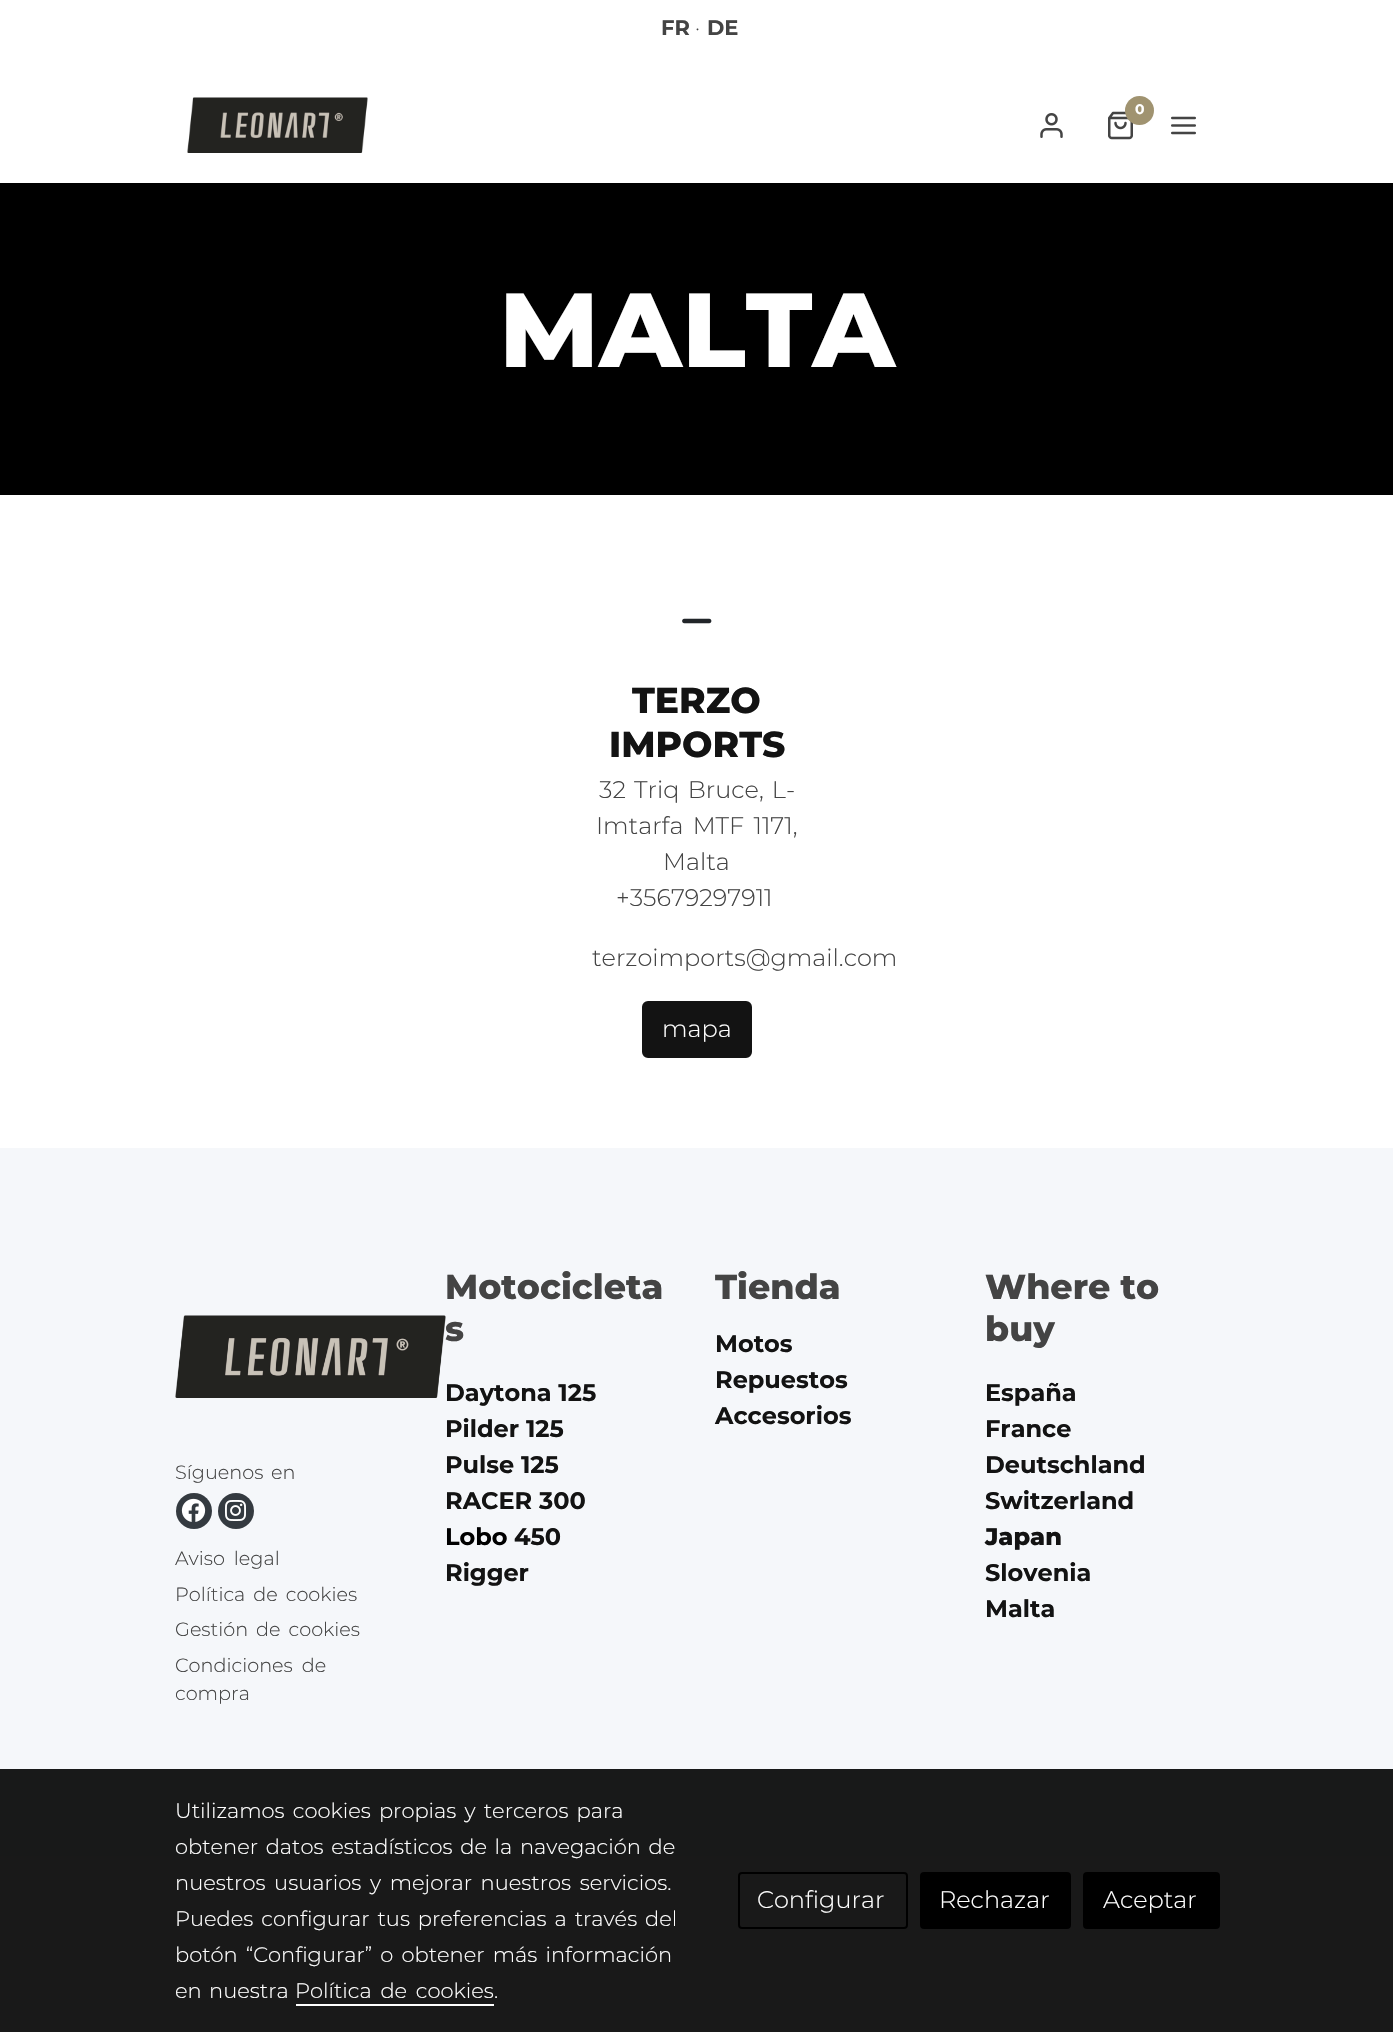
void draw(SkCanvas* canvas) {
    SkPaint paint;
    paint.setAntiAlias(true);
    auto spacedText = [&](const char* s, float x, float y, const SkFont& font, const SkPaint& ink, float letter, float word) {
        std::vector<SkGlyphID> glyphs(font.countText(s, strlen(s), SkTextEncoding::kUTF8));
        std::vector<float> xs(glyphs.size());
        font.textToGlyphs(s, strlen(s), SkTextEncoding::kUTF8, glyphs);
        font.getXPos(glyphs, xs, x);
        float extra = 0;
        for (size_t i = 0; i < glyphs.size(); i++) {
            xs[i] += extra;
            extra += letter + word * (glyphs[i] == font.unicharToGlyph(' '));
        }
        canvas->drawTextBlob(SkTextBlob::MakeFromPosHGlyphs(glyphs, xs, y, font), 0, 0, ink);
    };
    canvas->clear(0xFFFFFFFF);
    paint.setColor(0xFF191919);
    canvas->drawRect(SkRect::MakeXYWH(0, 1856, 1393, 176), paint);
    SkFont font1(fontMgr->matchFamilyStyle("Montserrat", SkFontStyle::Bold()), 21);
    font1.setSubpixel(true);
    paint.setColor(0xFF444444);
    canvas->drawString("FR", 661, 35, font1, paint);
    SkFont font2(fontMgr->matchFamilyStyle("Montserrat", SkFontStyle(300, SkFontStyle::kNormal_Width, SkFontStyle::kUpright_Slant)), 21);
    font2.setSubpixel(true);
    canvas->drawString("·", 695, 35, font2, paint);
    canvas->drawString("DE", 707, 35, font1, paint);
    canvas->drawImageRect(SkImages::DeferredFromEncodedData(SkData::MakeFromFileName("img1.png")), SkRect::MakeXYWH(187, 97, 181, 56), SkSamplingOptions());
    canvas->drawImageRect(SkImages::DeferredFromEncodedData(SkData::MakeFromFileName("img2.png")), SkRect::MakeXYWH(1108, 111, 25, 29), SkSamplingOptions());
    paint.setColor(0xFFA09370);
    canvas->drawCircle(1139.5f, 110.5f, 14.5f, paint);
    SkFont font3(fontMgr->matchFamilyStyle("Montserrat", SkFontStyle::Bold()), 14);
    font3.setSubpixel(true);
    paint.setColor(0xFFFFFFFF);
    canvas->drawString("0", 1135, 114, font3, paint);
    canvas->drawImageRect(SkImages::DeferredFromEncodedData(SkData::MakeFromFileName("img3.png")), SkRect::MakeXYWH(1040, 113, 23, 25), SkSamplingOptions());
    canvas->drawImageRect(SkImages::DeferredFromEncodedData(SkData::MakeFromFileName("img4.png")), SkRect::MakeXYWH(1171, 116, 25, 19), SkSamplingOptions());
    paint.setColor(0xFF000000);
    canvas->drawRect(SkRect::MakeXYWH(0, 183, 1393, 312), paint);
    SkFont font4(fontMgr->matchFamilyStyle("Montserrat", SkFontStyle(800, SkFontStyle::kNormal_Width, SkFontStyle::kUpright_Slant)), 105);
    font4.setSubpixel(true);
    paint.setColor(0xFFFFFFFF);
    canvas->drawString("MALTA", 499, 367, font4, paint);
    canvas->drawImageRect(SkImages::DeferredFromEncodedData(SkData::MakeFromFileName("img5.png")), SkRect::MakeXYWH(682, 618, 30, 6), SkSamplingOptions());
    SkFont font5(fontMgr->matchFamilyStyle("Montserrat", SkFontStyle(800, SkFontStyle::kNormal_Width, SkFontStyle::kUpright_Slant)), 36);
    font5.setSubpixel(true);
    paint.setColor(0xFF131313);
    canvas->drawString("TERZO", 632, 713, font5, paint);
    canvas->drawString("IMPORTS", 609, 757, font5, paint);
    SkFont font6(fontMgr->matchFamilyStyle("Montserrat", SkFontStyle(300, SkFontStyle::kNormal_Width, SkFontStyle::kUpright_Slant)), 24);
    font6.setSubpixel(true);
    paint.setColor(0xFF444444);
    spacedText("32 Triq Bruce, L-", 599, 798, font6, paint, 0, 2);
    spacedText("Imtarfa MTF 1171,", 596, 834, font6, paint, 0, 3);
    canvas->drawString("Malta", 663, 870, font6, paint);
    canvas->drawString("+35679297911", 616, 906, font6, paint);
    canvas->drawString("terzoimports@gmail.com", 592, 966, font6, paint);
    paint.setColor(0xFF131313);
    canvas->drawRoundRect(SkRect::MakeXYWH(643, 1002, 108, 55), 5, 5, paint);
    paint.setStyle(SkPaint::kStroke_Style);
    paint.setStrokeWidth(2);
    canvas->drawRoundRect(SkRect::MakeXYWH(643, 1002, 108, 55), 5, 5, paint);
    paint.setStyle(SkPaint::kFill_Style);
    paint.setColor(0xFFFFFFFF);
    canvas->drawString("mapa", 662, 1037, font6, paint);
    paint.setColor(0xFFF5F7FA);
    canvas->drawRect(SkRect::MakeXYWH(0, 1148, 1393, 621), paint);
    paint.setColor(0xFF181919);
    canvas->drawRect(SkRect::MakeXYWH(0, 1769, 1393, 87), paint);
    canvas->drawImageRect(SkImages::DeferredFromEncodedData(SkData::MakeFromFileName("img6.png")), SkRect::MakeXYWH(175, 1315, 271, 83), SkSamplingOptions());
    SkFont font7(fontMgr->matchFamilyStyle("Montserrat", SkFontStyle(300, SkFontStyle::kNormal_Width, SkFontStyle::kUpright_Slant)), 19.25f);
    font7.setSubpixel(true);
    paint.setColor(0xFF444444);
    spacedText("Síguenos en", 175, 1479, font7, paint, 0, 2.75f);
    paint.setColor(0xFF343A40);
    canvas->drawCircle(194, 1511, 18, paint);
    canvas->drawImageRect(SkImages::DeferredFromEncodedData(SkData::MakeFromFileName("img7.png")), SkRect::MakeXYWH(181, 1498, 25, 24), SkSamplingOptions());
    canvas->drawCircle(236, 1511, 18, paint);
    canvas->drawImageRect(SkImages::DeferredFromEncodedData(SkData::MakeFromFileName("img8.png")), SkRect::MakeXYWH(225, 1500, 21, 21), SkSamplingOptions());
    paint.setColor(0xFF444444);
    spacedText("Aviso legal", 175, 1565, font7, paint, 0, 4);
    spacedText("Política de cookies", 175, 1601, font7, paint, 0, 3);
    spacedText("Gestión de cookies", 175, 1636, font7, paint, 0, 3);
    spacedText("Condiciones de", 175, 1672, font7, paint, 0, 4);
    canvas->drawString("compra", 175, 1700, font7, paint);
    SkFont font8(fontMgr->matchFamilyStyle("Montserrat", SkFontStyle(800, SkFontStyle::kNormal_Width, SkFontStyle::kUpright_Slant)), 34.75f);
    font8.setSubpixel(true);
    canvas->drawString("Motocicleta", 445, 1299, font8, paint);
    canvas->drawString("s", 445, 1341, font8, paint);
    SkFont font9(fontMgr->matchFamilyStyle("Montserrat", SkFontStyle::Bold()), 24);
    font9.setSubpixel(true);
    paint.setColor(0xFF131313);
    canvas->drawString("Daytona 125", 445, 1401, font9, paint);
    canvas->drawString("Pilder 125", 445, 1437, font9, paint);
    canvas->drawString("Pulse 125", 445, 1473, font9, paint);
    canvas->drawString("RACER 300", 445, 1509, font9, paint);
    paint.setColor(0xFF000000);
    canvas->drawString("Lobo", 445, 1545, font9, paint);
    paint.setColor(0xFF131313);
    canvas->drawString("450", 514, 1545, font9, paint);
    canvas->drawString("Rigger", 445, 1581, font9, paint);
    paint.setColor(0xFF444444);
    canvas->drawString("Tienda", 715, 1299, font8, paint);
    paint.setColor(0xFF131313);
    canvas->drawString("Motos", 715, 1352, font9, paint);
    canvas->drawString("Repuestos", 715, 1388, font9, paint);
    canvas->drawString("Accesorios", 715, 1424, font9, paint);
    paint.setColor(0xFF444444);
    canvas->drawString("Where to", 985, 1299, font8, paint);
    canvas->drawString("buy", 985, 1341, font8, paint);
    paint.setColor(0xFF131313);
    canvas->drawString("España", 985, 1401, font9, paint);
    canvas->drawString("France", 985, 1437, font9, paint);
    canvas->drawString("Deutschland", 985, 1473, font9, paint);
    canvas->drawString("Switzerland", 985, 1509, font9, paint);
    SkFont font10(fontMgr->matchFamilyStyle("Montserrat", SkFontStyle(800, SkFontStyle::kNormal_Width, SkFontStyle::kUpright_Slant)), 24);
    font10.setSubpixel(true);
    canvas->drawString("Japan", 985, 1545, font10, paint);
    canvas->drawString("Slovenia", 985, 1581, font9, paint);
    canvas->drawString("Malta", 985, 1617, font9, paint);
    paint.setColor(0xFFFFFFFF);
    spacedText("Utilizamos cookies propias y terceros para", 175, 1818, font2, paint, 0, 2.75f);
    spacedText("obtener datos estadísticos de la navegación de", 175, 1854, font2, paint, 0, 2.25f);
    spacedText("nuestros usuarios y mejorar nuestros servicios.", 175, 1890, font2, paint, 0, 3.25f);
    spacedText("Puedes configurar tus preferencias a través del", 175, 1926, font2, paint, 0, 2.5f);
    spacedText("botón “Configurar” o obtener más información", 175, 1962, font2, paint, 0, 2.75f);
    spacedText("en nuestra", 175, 1998, font2, paint, 0, 2);
    spacedText("Política de cookies", 295, 1998, font2, paint, 0, 3.25f);
    canvas->drawString(".", 494, 1998, font2, paint);
    canvas->drawRect(SkRect::MakeXYWH(296, 2004, 198, 2), paint);
    paint.setStyle(SkPaint::kStroke_Style);
    paint.setColor(0xFF000000);
    canvas->drawRoundRect(SkRect::MakeXYWH(739, 1873, 168, 55), 3, 3, paint);
    paint.setStyle(SkPaint::kFill_Style);
    paint.setColor(0xFFFFFFFF);
    canvas->drawString("Configurar", 757, 1908, font6, paint);
    paint.setColor(0xFF000000);
    canvas->drawRoundRect(SkRect::MakeXYWH(921, 1873, 149, 55), 3, 3, paint);
    paint.setStyle(SkPaint::kStroke_Style);
    canvas->drawRoundRect(SkRect::MakeXYWH(921, 1873, 149, 55), 3, 3, paint);
    paint.setStyle(SkPaint::kFill_Style);
    paint.setColor(0xFFFFFFFF);
    canvas->drawString("Rechazar", 939, 1908, font6, paint);
    paint.setColor(0xFF000000);
    canvas->drawRoundRect(SkRect::MakeXYWH(1084, 1873, 135, 55), 3, 3, paint);
    paint.setStyle(SkPaint::kStroke_Style);
    canvas->drawRoundRect(SkRect::MakeXYWH(1084, 1873, 135, 55), 3, 3, paint);
    paint.setStyle(SkPaint::kFill_Style);
    paint.setColor(0xFFFFFFFF);
    canvas->drawString("Aceptar", 1103, 1908, font6, paint);
}
